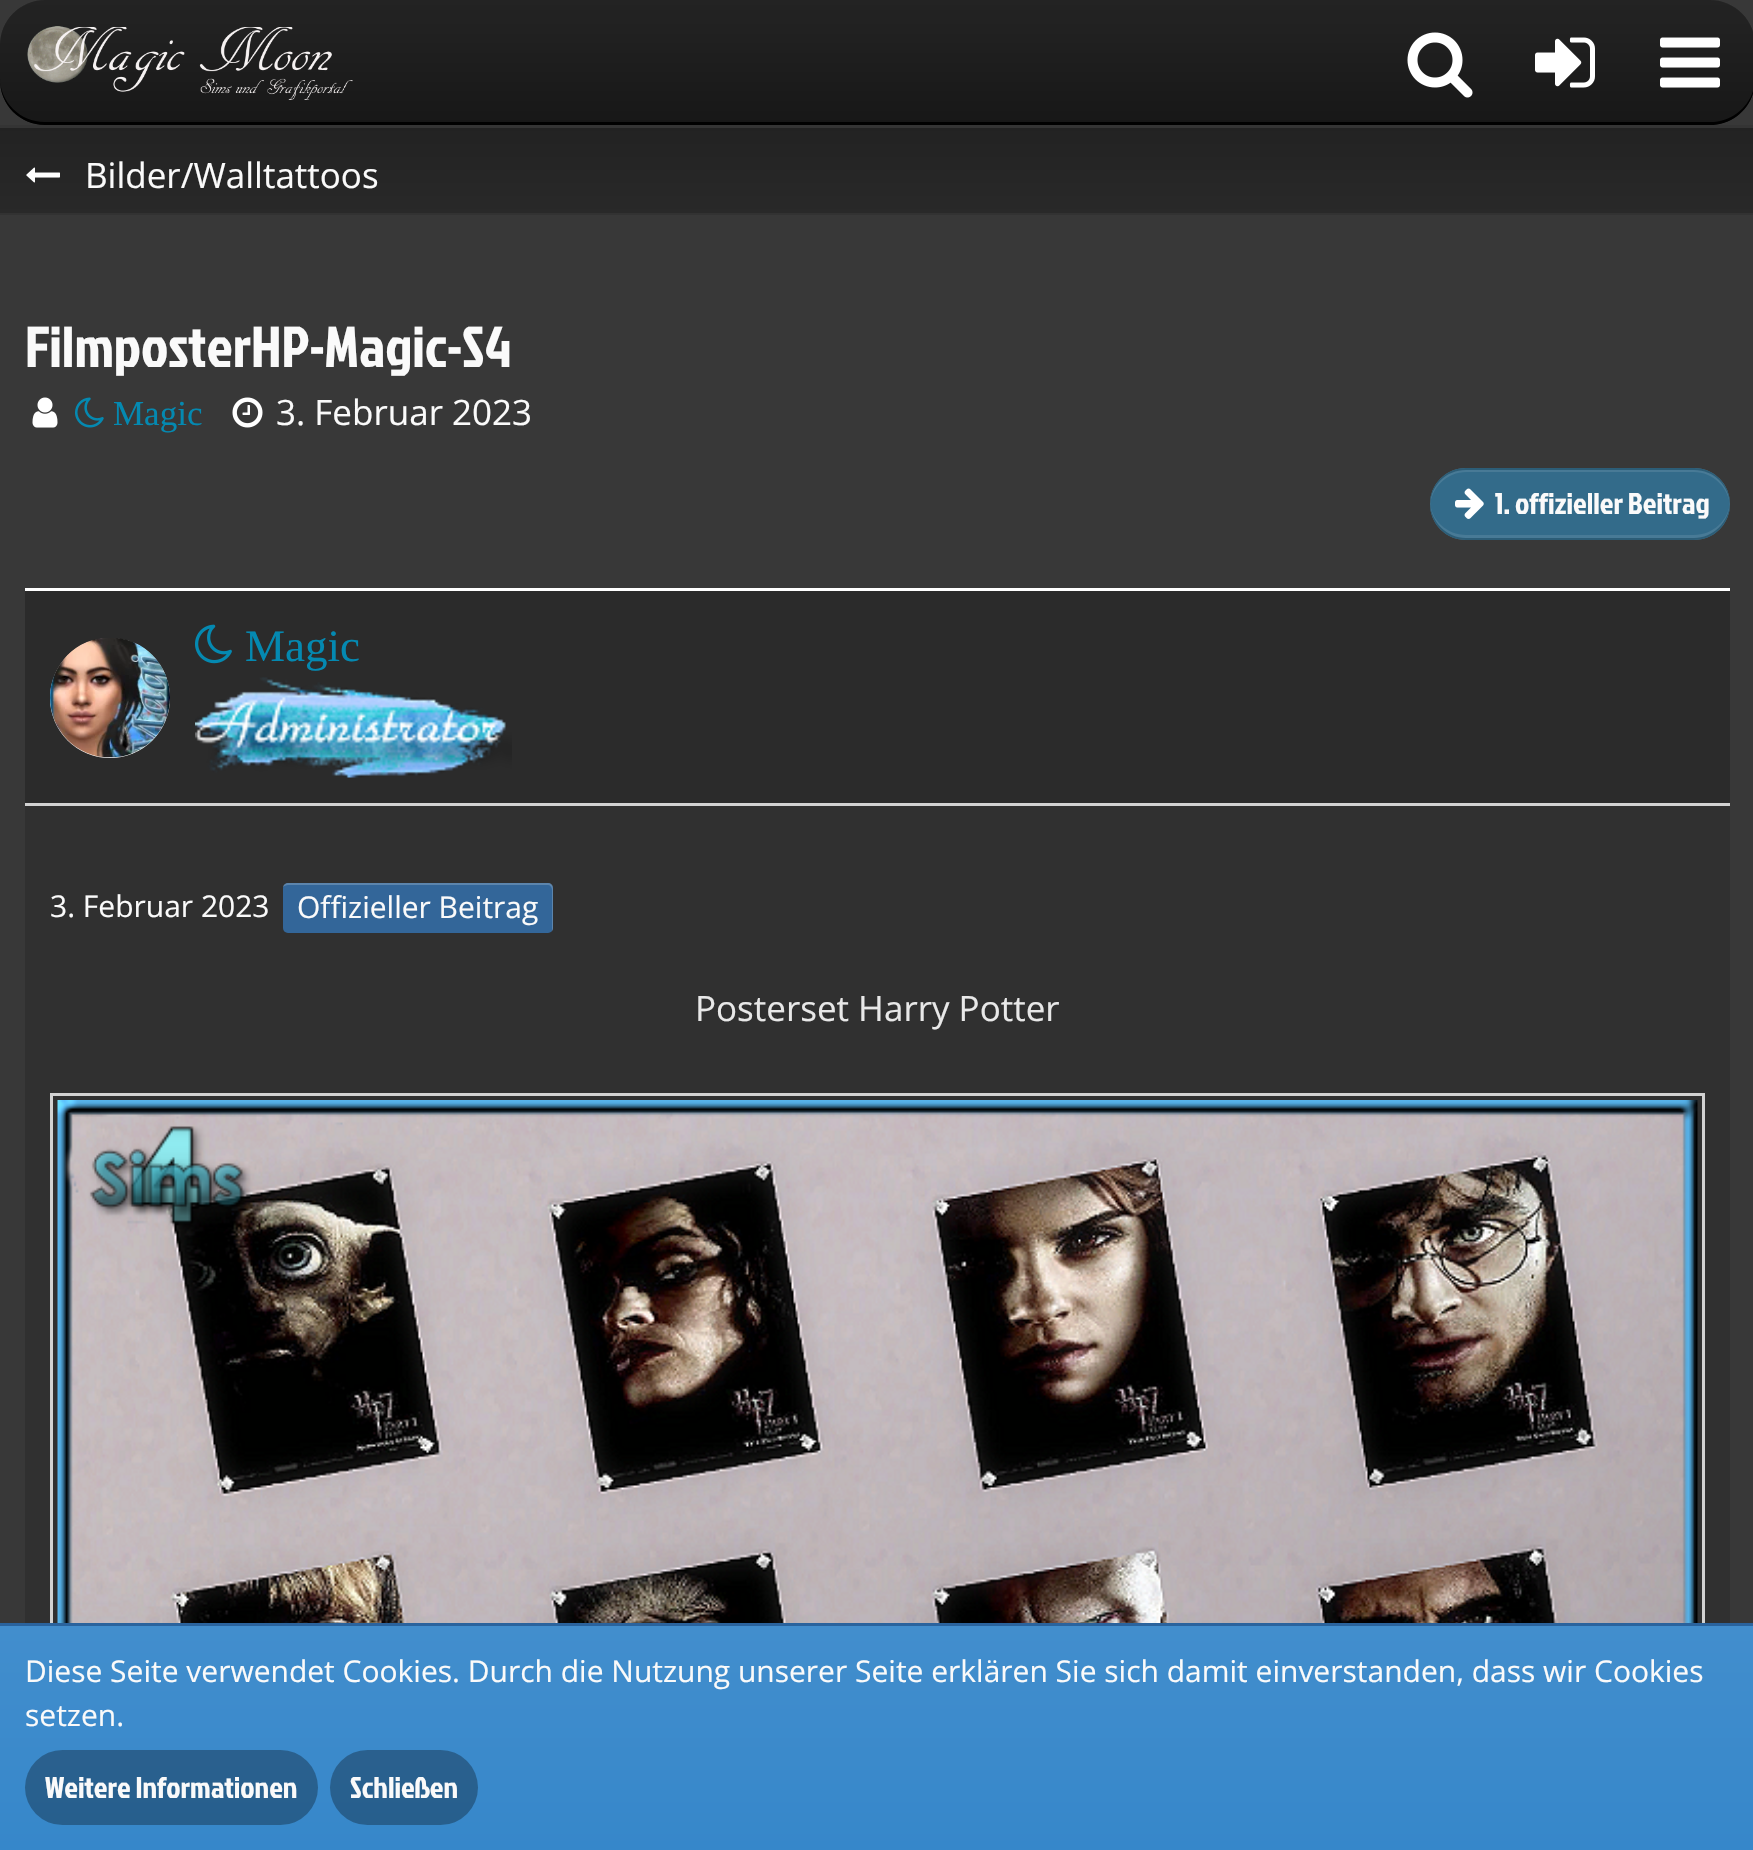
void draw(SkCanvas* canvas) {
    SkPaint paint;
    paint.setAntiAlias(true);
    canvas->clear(0xFF383838);
    paint.setColor(0xFF0A0A0A);
    canvas->drawRoundRect(SkRect::MakeXYWH(0, 0, 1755, 125), 45, 45, paint);
    {
        const SkColor colors[] = {0x1AFFFFFF, 0x0DFFFFFF};
        const float stops[] = {0, 1};
        const SkPoint ends[] = {{878, 0}, {878, 125}};
        paint.setShader(SkGradientShader::MakeLinear(ends, colors, stops, 2, SkTileMode::kClamp));
        paint.setAlpha(255);
    }
    canvas->drawRoundRect(SkRect::MakeXYWH(0, 0, 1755, 125), 45, 45, paint);
    paint.setShader(nullptr);
    paint.setColor(0xFF000000);
    canvas->drawPath(SkPathBuilder().moveTo(0, 78).lineTo(0, 80).cubicTo(0, 105, 20, 125, 45, 125).lineTo(1710, 125).cubicTo(1735, 125, 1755, 105, 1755, 80).lineTo(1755, 78).cubicTo(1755, 102, 1735, 122, 1710, 122).lineTo(45, 122).cubicTo(20, 122, 0, 102, 0, 78).close().detach(), paint);
    canvas->drawImageRect(SkImages::DeferredFromEncodedData(SkData::MakeFromFileName("img1.png")), SkRect::MakeXYWH(27, 26, 326, 74), SkSamplingOptions());
    canvas->drawImageRect(SkImages::DeferredFromEncodedData(SkData::MakeFromFileName("img2.png")), SkRect::MakeXYWH(1407, 32, 66, 66), SkSamplingOptions());
    canvas->drawImageRect(SkImages::DeferredFromEncodedData(SkData::MakeFromFileName("img3.png")), SkRect::MakeXYWH(1535, 37, 60, 51), SkSamplingOptions());
    canvas->drawImageRect(SkImages::DeferredFromEncodedData(SkData::MakeFromFileName("img4.png")), SkRect::MakeXYWH(1660, 37, 60, 51), SkSamplingOptions());
    {
        const SkColor colors[] = {0xFF222222, 0xFF292929};
        const float stops[] = {0, 1};
        const SkPoint ends[] = {{878, 125}, {878, 215}};
        paint.setShader(SkGradientShader::MakeLinear(ends, colors, stops, 2, SkTileMode::kClamp));
        paint.setAlpha(255);
    }
    canvas->drawRect(SkRect::MakeXYWH(0, 128, 1753, 85), paint);
    {
        const SkColor colors[] = {0xFF2B2B2B, 0xFF323232};
        const float stops[] = {0, 1};
        const SkPoint ends[] = {{878, 125}, {878, 215}};
        paint.setShader(SkGradientShader::MakeLinear(ends, colors, stops, 2, SkTileMode::kClamp));
        paint.setAlpha(255);
    }
    canvas->drawRect(SkRect::MakeXYWH(0, 213, 1753, 2), paint);
    paint.setShader(nullptr);
    paint.setColor(0xFF343434);
    canvas->drawRect(SkRect::MakeXYWH(0, 125, 1753, 3), paint);
    canvas->drawImageRect(SkImages::DeferredFromEncodedData(SkData::MakeFromFileName("img5.png")), SkRect::MakeXYWH(26, 167, 34, 16), SkSamplingOptions());
    SkFont font1(fontMgr->matchFamilyStyle("Open Sans", SkFontStyle::Normal()), 35);
    font1.setSubpixel(true);
    paint.setColor(0xFFFAFAFA);
    canvas->drawString("Bilder/Walltattoos", 85, 188, font1, paint);
    SkFont font2(fontMgr->matchFamilyStyle("Jockey One", SkFontStyle::Normal()), 57.5f);
    font2.setSubpixel(true);
    canvas->drawString("FilmposterHP-Magic-S4", 25, 367, font2, paint);
    canvas->drawImageRect(SkImages::DeferredFromEncodedData(SkData::MakeFromFileName("img6.png")), SkRect::MakeXYWH(32, 397, 26, 31), SkSamplingOptions());
    canvas->drawImageRect(SkImages::DeferredFromEncodedData(SkData::MakeFromFileName("img7.png")), SkRect::MakeXYWH(75, 397, 29, 31), SkSamplingOptions());
    SkFont font3(fontMgr->matchFamilyStyle("Liberation Serif", SkFontStyle::Normal()), 35);
    font3.setSubpixel(true);
    paint.setColor(0xFF0489B1);
    canvas->drawString("Magic", 113, 425, font3, paint);
    canvas->drawImageRect(SkImages::DeferredFromEncodedData(SkData::MakeFromFileName("img8.png")), SkRect::MakeXYWH(232, 397, 31, 31), SkSamplingOptions());
    paint.setColor(0xFFFAFAFA);
    canvas->drawString("3. Februar 2023", 276, 425, font1, paint);
    paint.setColor(0xFF336B8A);
    canvas->drawRoundRect(SkRect::MakeXYWH(1430, 468, 300, 72), 36, 36, paint);
    paint.setColor(0x1AFFFFFF);
    canvas->drawPath(SkPathBuilder().moveTo(1466, 472).lineTo(1694, 472).cubicTo(1713, 472, 1729, 488, 1730, 506).lineTo(1730, 504).cubicTo(1730, 484, 1714, 468, 1694, 468).lineTo(1466, 468).cubicTo(1446, 468, 1430, 484, 1430, 504).lineTo(1430, 506).cubicTo(1431, 488, 1447, 472, 1466, 472).close().detach(), paint);
    canvas->drawPath(SkPathBuilder().moveTo(1430, 502).lineTo(1430, 504).cubicTo(1430, 524, 1446, 540, 1466, 540).lineTo(1694, 540).cubicTo(1714, 540, 1730, 524, 1730, 504).lineTo(1730, 502).cubicTo(1729, 520, 1713, 535, 1694, 535).lineTo(1466, 535).cubicTo(1447, 535, 1431, 520, 1430, 502).close().detach(), paint);
    paint.setColor(0xFF2C5D77);
    canvas->drawPath(SkPathBuilder().moveTo(1430, 503).lineTo(1430, 504).cubicTo(1430, 524, 1446, 540, 1466, 540).lineTo(1694, 540).cubicTo(1714, 540, 1730, 524, 1730, 504).lineTo(1730, 503).cubicTo(1729, 522, 1713, 538, 1694, 538).lineTo(1466, 538).cubicTo(1447, 538, 1431, 522, 1430, 503).close().detach(), paint);
    canvas->drawPath(SkPathBuilder().moveTo(1466, 470).lineTo(1694, 470).cubicTo(1714, 470, 1729, 485, 1730, 505).lineTo(1730, 504).cubicTo(1730, 484, 1714, 468, 1694, 468).lineTo(1466, 468).cubicTo(1446, 468, 1430, 484, 1430, 504).lineTo(1430, 505).cubicTo(1431, 485, 1446, 470, 1466, 470).close().detach(), paint);
    canvas->drawImageRect(SkImages::DeferredFromEncodedData(SkData::MakeFromFileName("img9.png")), SkRect::MakeXYWH(1455, 488, 29, 31), SkSamplingOptions());
    SkFont font4(fontMgr->matchFamilyStyle("Jockey One", SkFontStyle::Normal()), 30);
    font4.setSubpixel(true);
    paint.setColor(0xFFFAFAFA);
    canvas->drawString("1. offizieller Beitrag", 1495, 514, font4, paint);
    paint.setColor(0xFF303030);
    canvas->drawRect(SkRect::MakeXYWH(25, 806, 1705, 817), paint);
    paint.setColor(0xFF2B2B2B);
    canvas->drawRect(SkRect::MakeXYWH(25, 591, 1705, 212), paint);
    paint.setColor(0xFFFFFFFF);
    canvas->drawRect(SkRect::MakeXYWH(25, 588, 1705, 3), paint);
    paint.setColor(0xFFD2D2D2);
    canvas->drawRect(SkRect::MakeXYWH(25, 803, 1705, 3), paint);
    paint.setColor(0xFFFFFFFF);
    canvas->drawCircle(110, 698, 60, paint);
    canvas->drawImageRect(SkImages::DeferredFromEncodedData(SkData::MakeFromFileName("img10.png")), SkRect::MakeXYWH(50, 638, 120, 120), SkSamplingOptions());
    canvas->drawImageRect(SkImages::DeferredFromEncodedData(SkData::MakeFromFileName("img11.png")), SkRect::MakeXYWH(195, 624, 37, 40), SkSamplingOptions());
    SkFont font5(fontMgr->matchFamilyStyle("Liberation Serif", SkFontStyle::Normal()), 45);
    font5.setSubpixel(true);
    paint.setColor(0xFF0489B1);
    canvas->drawString("Magic", 245, 661, font5, paint);
    canvas->drawImageRect(SkImages::DeferredFromEncodedData(SkData::MakeFromFileName("img12.png")), SkRect::MakeXYWH(195, 677, 317, 101), SkSamplingOptions());
    SkFont font6(fontMgr->matchFamilyStyle("Open Sans", SkFontStyle::Normal()), 30);
    font6.setSubpixel(true);
    paint.setColor(0xFFFAFAFA);
    canvas->drawString("3. Februar 2023", 50, 917, font6, paint);
    paint.setColor(0xFF336699);
    canvas->drawRoundRect(SkRect::MakeXYWH(283, 883, 270, 50), 5, 5, paint);
    paint.setColor(0x33FFFFFF);
    canvas->drawPath(SkPathBuilder().moveTo(288, 885).lineTo(548, 885).cubicTo(550, 885, 552, 887, 552, 890).lineTo(552, 931).cubicTo(553, 930, 553, 929, 553, 928).lineTo(553, 888).cubicTo(553, 885, 551, 883, 548, 883).lineTo(288, 883).cubicTo(286, 883, 283, 885, 283, 887).cubicTo(284, 886, 286, 885, 288, 885).close().detach(), paint);
    paint.setColor(0xFFFAFAFA);
    canvas->drawString("Offizieller Beitrag", 297, 918, font6, paint);
    paint.setColor(0xFFE8E8E8);
    canvas->drawString("Posterset Harry Potter", 695, 1021, font1, paint);
    paint.setStyle(SkPaint::kStroke_Style);
    paint.setStrokeWidth(3);
    paint.setColor(0xFFD2D2D2);
    canvas->drawRect(SkRect::MakeXYWH(51.5f, 1094.5f, 1652, 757), paint);
    canvas->drawImageRect(SkImages::DeferredFromEncodedData(SkData::MakeFromFileName("img13.png")), SkRect::MakeXYWH(57, 1100, 1641, 523), SkSamplingOptions());
    paint.setStyle(SkPaint::kFill_Style);
    {
        const SkColor colors[] = {0xFF428ECD, 0xFF3687CA};
        const float stops[] = {0, 1};
        const SkPoint ends[] = {{878, 1625}, {878, 1850}};
        paint.setShader(SkGradientShader::MakeLinear(ends, colors, stops, 2, SkTileMode::kClamp));
        paint.setAlpha(255);
    }
    canvas->drawRect(SkRect::MakeXYWH(0, 1626, 1753, 224), paint);
    paint.setShader(nullptr);
    paint.setColor(0xFF2A639D);
    canvas->drawRect(SkRect::MakeXYWH(0, 1623, 1753, 3), paint);
    paint.setColor(0xFFFAFAFA);
    canvas->drawString("Diese Seite verwendet Cookies. Durch die Nutzung unserer Seite erklären Sie sich damit einverstanden, dass wir Cookies", 25, 1682, font6, paint);
    canvas->drawString("setzen.", 25, 1726, font6, paint);
    paint.setColor(0x4D000000);
    canvas->drawRoundRect(SkRect::MakeXYWH(25, 1750, 293, 75), 37.5f, 37.5f, paint);
    paint.setColor(0xFFFAFAFA);
    canvas->drawString("Weitere Informationen", 45, 1798, font4, paint);
    paint.setColor(0x4D000000);
    canvas->drawRoundRect(SkRect::MakeXYWH(330, 1750, 148, 75), 37.5f, 37.5f, paint);
    paint.setColor(0xFFFAFAFA);
    canvas->drawString("Schließen", 350, 1798, font4, paint);
}
